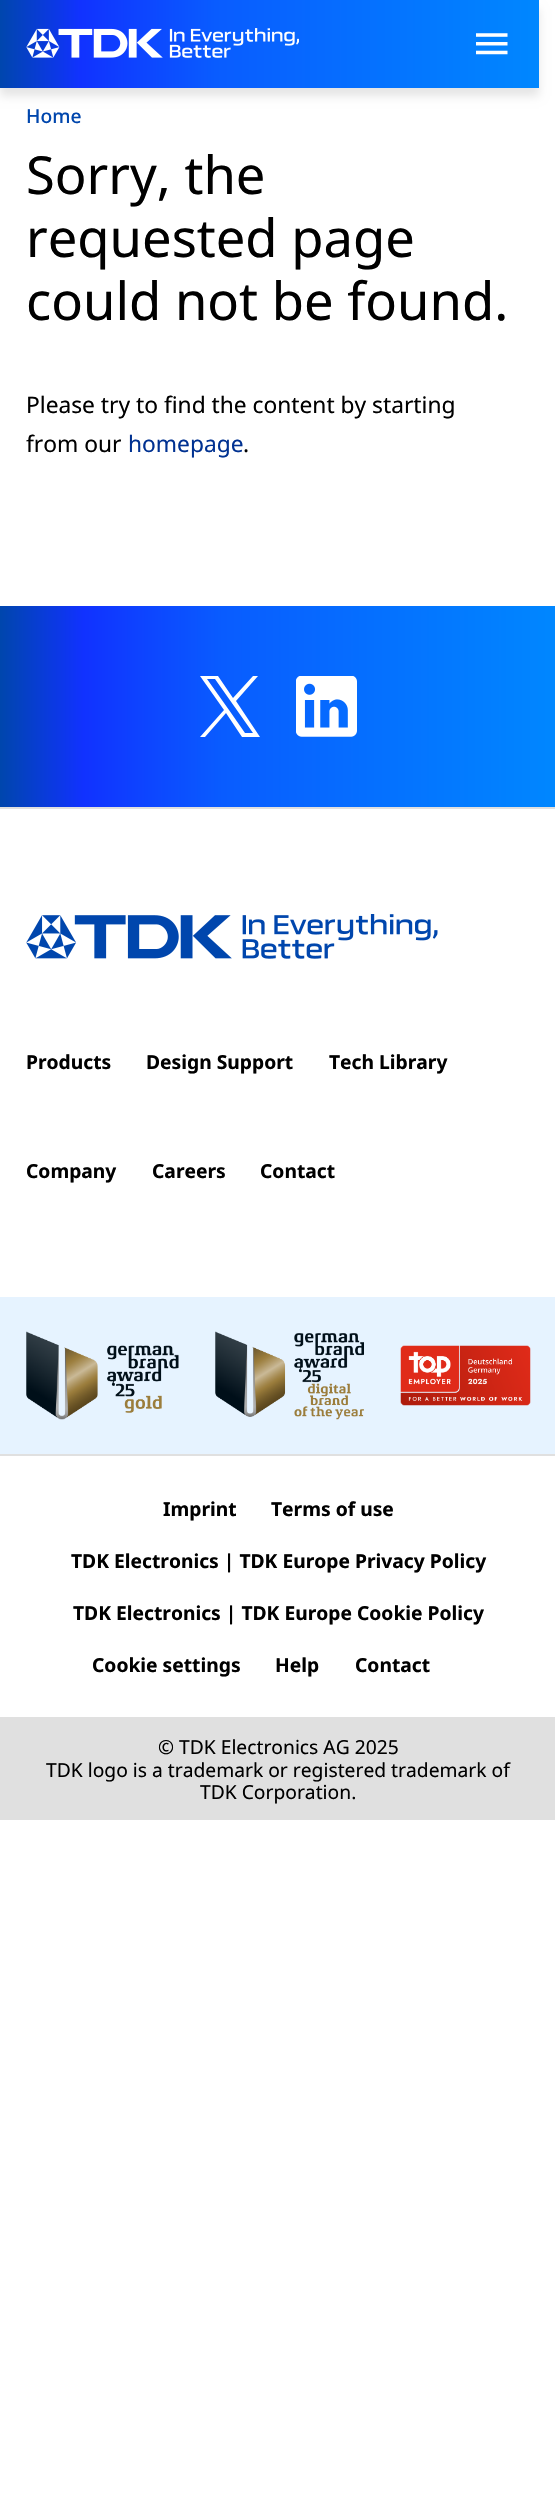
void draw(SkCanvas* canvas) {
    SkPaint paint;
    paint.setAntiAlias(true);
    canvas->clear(0xFFFFFFFF);
    paint.setColor(0x1A000000);
    paint.setMaskFilter(SkMaskFilter::MakeBlur(kNormal_SkBlurStyle, 4.5f));
    canvas->drawRect(SkRect::MakeXYWH(0, 9, 539, 87), paint);
    paint.setMaskFilter(nullptr);
    {
        const SkColor colors[] = {0xFF0046AD, 0xFF1132FF, 0xFF095CFF, 0xFF0087FF};
        const float stops[] = {0, 0.15f, 0.4f, 1};
        const SkPoint ends[] = {{0, 44}, {539, 44}};
        paint.setShader(SkGradientShader::MakeLinear(ends, colors, stops, 4, SkTileMode::kClamp));
        paint.setAlpha(255);
    }
    canvas->drawRect(SkRect::MakeXYWH(0, 0, 539, 88), paint);
    canvas->drawImageRect(SkImages::DeferredFromEncodedData(SkData::MakeFromFileName("img1.png")), SkRect::MakeXYWH(26, 28, 273, 30), SkSamplingOptions());
    canvas->drawImageRect(SkImages::DeferredFromEncodedData(SkData::MakeFromFileName("img2.png")), SkRect::MakeXYWH(476, 33, 32, 22), SkSamplingOptions());
    SkFont font1(fontMgr->matchFamilyStyle("Noto Sans", SkFontStyle(500, SkFontStyle::kNormal_Width, SkFontStyle::kUpright_Slant)), 19.25f);
    font1.setSubpixel(true);
    paint.setShader(nullptr);
    paint.setColor(0xFF0046AD);
    canvas->drawString("Home", 26, 123, font1, paint);
    SkFont font2(fontMgr->matchFamilyStyle("Noto Sans", SkFontStyle::Normal()), 52.5f);
    font2.setSubpixel(true);
    paint.setColor(0xFF000000);
    canvas->drawString("Sorry, the", 26, 194, font2, paint);
    canvas->drawString("requested page", 26, 257, font2, paint);
    canvas->drawString("could not be found.", 26, 320, font2, paint);
    SkFont font3(fontMgr->matchFamilyStyle("Noto Sans", SkFontStyle::Normal()), 22.75f);
    font3.setSubpixel(true);
    canvas->drawString("Please try to find the content by starting", 26, 413, font3, paint);
    canvas->drawString("from our", 26, 452, font3, paint);
    paint.setColor(0xFF003191);
    canvas->drawString("homepage", 128, 452, font3, paint);
    paint.setColor(0xFF000000);
    canvas->drawString(".", 243, 452, font3, paint);
    {
        const SkColor colors[] = {0xFF0046AD, 0xFF1132FF, 0xFF095CFF, 0xFF0087FF};
        const float stops[] = {0, 0.15f, 0.4f, 1};
        const SkPoint ends[] = {{0, 706}, {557, 706}};
        paint.setShader(SkGradientShader::MakeLinear(ends, colors, stops, 4, SkTileMode::kClamp));
        paint.setAlpha(255);
    }
    canvas->drawRect(SkRect::MakeXYWH(0, 606, 555, 201), paint);
    paint.setShader(nullptr);
    paint.setColor(0xFFFFFFFF);
    canvas->drawPath(SkPathBuilder().moveTo(236, 701).lineTo(258, 676).lineTo(253, 676).lineTo(233, 698).lineTo(218, 676).lineTo(200, 676).lineTo(224, 710).lineTo(200, 737).lineTo(205, 737).lineTo(226, 713).lineTo(242, 737).lineTo(260, 737).close().moveTo(229, 710).lineTo(207, 679).lineTo(215, 679).lineTo(253, 733).lineTo(245, 733).close().detach(), paint);
    canvas->drawImageRect(SkImages::DeferredFromEncodedData(SkData::MakeFromFileName("img3.png")), SkRect::MakeXYWH(296, 676, 61, 61), SkSamplingOptions());
    paint.setColor(0xFFE0E0E0);
    canvas->drawRect(SkRect::MakeXYWH(0, 807, 555, 2), paint);
    canvas->drawImageRect(SkImages::DeferredFromEncodedData(SkData::MakeFromFileName("img4.png")), SkRect::MakeXYWH(26, 914, 412, 45), SkSamplingOptions());
    SkFont font4(fontMgr->matchFamilyStyle("Noto Sans", SkFontStyle::Bold()), 19.25f);
    font4.setSubpixel(true);
    paint.setColor(0xFF000000);
    canvas->drawString("Products", 26, 1069, font4, paint);
    canvas->drawString("Design Support", 146, 1069, font4, paint);
    canvas->drawString("Tech Library", 329, 1069, font4, paint);
    canvas->drawString("Company", 26, 1178, font4, paint);
    canvas->drawString("Careers", 152, 1178, font4, paint);
    canvas->drawString("Contact", 260, 1178, font4, paint);
    paint.setColor(0xFFE6F3FF);
    canvas->drawRect(SkRect::MakeXYWH(0, 1297, 555, 157), paint);
    canvas->drawImageRect(SkImages::DeferredFromEncodedData(SkData::MakeFromFileName("img5.png")), SkRect::MakeXYWH(26, 1331, 153, 89), SkSamplingOptions());
    canvas->drawImageRect(SkImages::DeferredFromEncodedData(SkData::MakeFromFileName("img6.png")), SkRect::MakeXYWH(215, 1331, 149, 89), SkSamplingOptions());
    canvas->drawImageRect(SkImages::DeferredFromEncodedData(SkData::MakeFromFileName("img7.png")), SkRect::MakeXYWH(400, 1345, 131, 61), SkSamplingOptions());
    paint.setColor(0xFFE0E0E0);
    canvas->drawRect(SkRect::MakeXYWH(0, 1717, 555, 103), paint);
    canvas->drawRect(SkRect::MakeXYWH(0, 1454, 555, 2), paint);
    paint.setColor(0xFF000000);
    canvas->drawString("Imprint", 163, 1516, font4, paint);
    canvas->drawString("Terms of use", 271, 1516, font4, paint);
    canvas->drawString("TDK Electronics | TDK Europe Privacy Policy", 71, 1568, font4, paint);
    canvas->drawString("TDK Electronics | TDK Europe Cookie Policy", 73, 1620, font4, paint);
    canvas->drawString("Cookie settings", 92, 1672, font4, paint);
    canvas->drawString("Help", 275, 1672, font4, paint);
    canvas->drawString("Contact", 355, 1672, font4, paint);
    SkFont font5(fontMgr->matchFamilyStyle("Noto Sans", SkFontStyle::Normal()), 19.25f);
    font5.setSubpixel(true);
    canvas->drawString("© TDK Electronics AG 2025", 158, 1754, font5, paint);
    canvas->drawString("TDK logo is a trademark or registered trademark of", 46, 1777, font5, paint);
    canvas->drawString("TDK Corporation.", 200, 1799, font5, paint);
}
